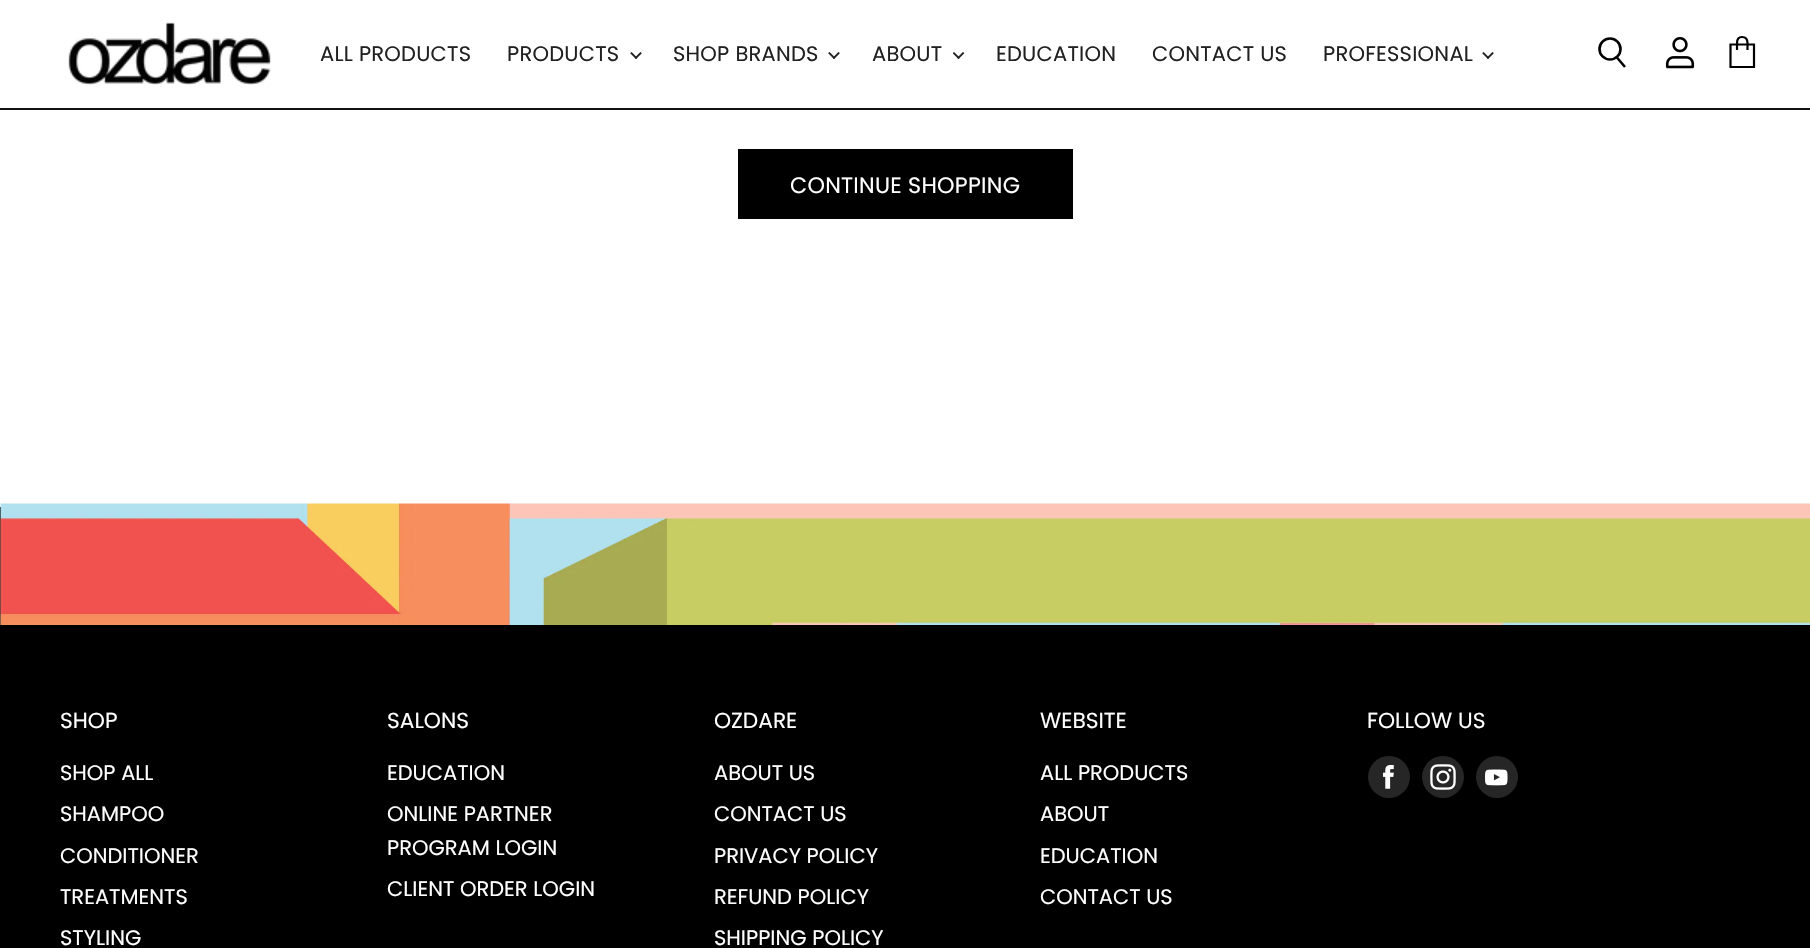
void draw(SkCanvas* canvas) {
    SkPaint paint;
    paint.setAntiAlias(true);
    auto spacedText = [&](const char* s, float x, float y, const SkFont& font, const SkPaint& ink, float letter, float word) {
        std::vector<SkGlyphID> glyphs(font.countText(s, strlen(s), SkTextEncoding::kUTF8));
        std::vector<float> xs(glyphs.size());
        font.textToGlyphs(s, strlen(s), SkTextEncoding::kUTF8, glyphs);
        font.getXPos(glyphs, xs, x);
        float extra = 0;
        for (size_t i = 0; i < glyphs.size(); i++) {
            xs[i] += extra;
            extra += letter + word * (glyphs[i] == font.unicharToGlyph(' '));
        }
        canvas->drawTextBlob(SkTextBlob::MakeFromPosHGlyphs(glyphs, xs, y, font), 0, 0, ink);
    };
    canvas->clear(0xFFFFFFFF);
    paint.setColor(0xFF111111);
    canvas->drawRect(SkRect::MakeXYWH(0, 108, 1810, 2), paint);
    canvas->drawImageRect(SkImages::DeferredFromEncodedData(SkData::MakeFromFileName("img1.png")), SkRect::MakeXYWH(68, 22, 203, 63), SkSamplingOptions());
    SkFont font1(fontMgr->matchFamilyStyle("Poppins", SkFontStyle::Normal()), 21);
    font1.setSubpixel(true);
    paint.setColor(0xFF212121);
    spacedText("ALL PRODUCTS", 320, 61, font1, paint, 0.25f, 0);
    spacedText("PRODUCTS", 507, 61, font1, paint, 0.25f, 0);
    canvas->drawImageRect(SkImages::DeferredFromEncodedData(SkData::MakeFromFileName("img2.png")), SkRect::MakeXYWH(630, 52, 12, 7), SkSamplingOptions());
    spacedText("SHOP BRANDS", 673, 61, font1, paint, 0.25f, 0);
    canvas->drawImageRect(SkImages::DeferredFromEncodedData(SkData::MakeFromFileName("img2.png")), SkRect::MakeXYWH(828, 52, 12, 7), SkSamplingOptions());
    spacedText("ABOUT", 872, 61, font1, paint, 0.25f, 0);
    canvas->drawImageRect(SkImages::DeferredFromEncodedData(SkData::MakeFromFileName("img3.png")), SkRect::MakeXYWH(953, 52, 12, 7), SkSamplingOptions());
    spacedText("EDUCATION", 996, 61, font1, paint, 0.25f, 0);
    spacedText("CONTACT US", 1152, 61, font1, paint, 0.25f, 0);
    spacedText("PROFESSIONAL", 1323, 61, font1, paint, 0.25f, 0);
    canvas->drawImageRect(SkImages::DeferredFromEncodedData(SkData::MakeFromFileName("img2.png")), SkRect::MakeXYWH(1482, 52, 12, 7), SkSamplingOptions());
    paint.setStyle(SkPaint::kStroke_Style);
    paint.setStrokeWidth(2.6f);
    paint.setColor(0xFF000000);
    canvas->drawPath(SkPathBuilder().moveTo(1625, 67).lineTo(1616.5f, 57).detach(), paint);
    canvas->drawCircle(1610, 49, 10.5f, paint);
    canvas->drawImageRect(SkImages::DeferredFromEncodedData(SkData::MakeFromFileName("img4.png")), SkRect::MakeXYWH(1665, 37, 30, 32), SkSamplingOptions());
    paint.setStrokeWidth(2.2f);
    canvas->drawPath(SkPathBuilder().moveTo(1730.5f, 44.5f).lineTo(1754, 44.5f).lineTo(1754, 67).lineTo(1730.5f, 67).close().moveTo(1747.5f, 50).lineTo(1747.5f, 43).cubicTo(1747.5f, 38.5f, 1745, 37, 1742, 37).cubicTo(1739.5f, 37, 1737, 38.5f, 1737, 43).lineTo(1737, 50).detach(), paint);
    paint.setStyle(SkPaint::kFill_Style);
    canvas->drawRect(SkRect::MakeXYWH(738, 149, 335, 70), paint);
    SkFont font2(fontMgr->matchFamilyStyle("Poppins", SkFontStyle::Normal()), 22.25f);
    font2.setSubpixel(true);
    paint.setColor(0xFFFFFFFF);
    spacedText("CONTINUE SHOPPING", 790, 193, font2, paint, 0.25f, 0);
    paint.setColor(0xFF000000);
    canvas->drawRect(SkRect::MakeXYWH(0, 507, 1810, 441), paint);
    canvas->drawImageRect(SkImages::DeferredFromEncodedData(SkData::MakeFromFileName("img5.png")), SkRect::MakeXYWH(0, 503, 1810, 122), SkSamplingOptions());
    SkFont font3(fontMgr->matchFamilyStyle("Poppins", SkFontStyle::Normal()), 21.75f);
    font3.setSubpixel(true);
    paint.setColor(0xFFFFFFFF);
    canvas->drawString("SHOP", 60, 728, font3, paint);
    canvas->drawString("SHOP ALL", 60, 780, font1, paint);
    canvas->drawString("SHAMPOO", 60, 821, font1, paint);
    canvas->drawString("CONDITIONER", 60, 863, font1, paint);
    canvas->drawString("TREATMENTS", 60, 904, font1, paint);
    canvas->drawString("STYLING", 60, 945, font1, paint);
    canvas->drawString("SALONS", 387, 728, font3, paint);
    canvas->drawString("EDUCATION", 387, 780, font1, paint);
    canvas->drawString("ONLINE PARTNER", 387, 821, font1, paint);
    canvas->drawString("PROGRAM LOGIN", 387, 855, font1, paint);
    canvas->drawString("CLIENT ORDER LOGIN", 387, 896, font1, paint);
    canvas->drawString("OZDARE", 714, 728, font3, paint);
    canvas->drawString("ABOUT US", 714, 780, font1, paint);
    canvas->drawString("CONTACT US", 714, 821, font1, paint);
    canvas->drawString("PRIVACY POLICY", 714, 863, font1, paint);
    canvas->drawString("REFUND POLICY", 714, 904, font1, paint);
    canvas->drawString("SHIPPING POLICY", 714, 945, font1, paint);
    canvas->drawString("WEBSITE", 1040, 728, font3, paint);
    canvas->drawString("ALL PRODUCTS", 1040, 780, font1, paint);
    canvas->drawString("ABOUT", 1040, 821, font1, paint);
    canvas->drawString("EDUCATION", 1040, 863, font1, paint);
    canvas->drawString("CONTACT US", 1040, 904, font1, paint);
    canvas->drawString("FOLLOW US", 1367, 728, font3, paint);
    paint.setColor(0xFF262626);
    canvas->drawCircle(1389, 777, 21, paint);
    canvas->drawImageRect(SkImages::DeferredFromEncodedData(SkData::MakeFromFileName("img6.png")), SkRect::MakeXYWH(1383, 765, 11, 24), SkSamplingOptions());
    canvas->drawCircle(1443, 777, 21, paint);
    canvas->drawImageRect(SkImages::DeferredFromEncodedData(SkData::MakeFromFileName("img7.png")), SkRect::MakeXYWH(1430, 764, 26, 26), SkSamplingOptions());
    canvas->drawCircle(1497, 777, 21, paint);
    canvas->drawImageRect(SkImages::DeferredFromEncodedData(SkData::MakeFromFileName("img8.png")), SkRect::MakeXYWH(1485, 769, 23, 17), SkSamplingOptions());
}
